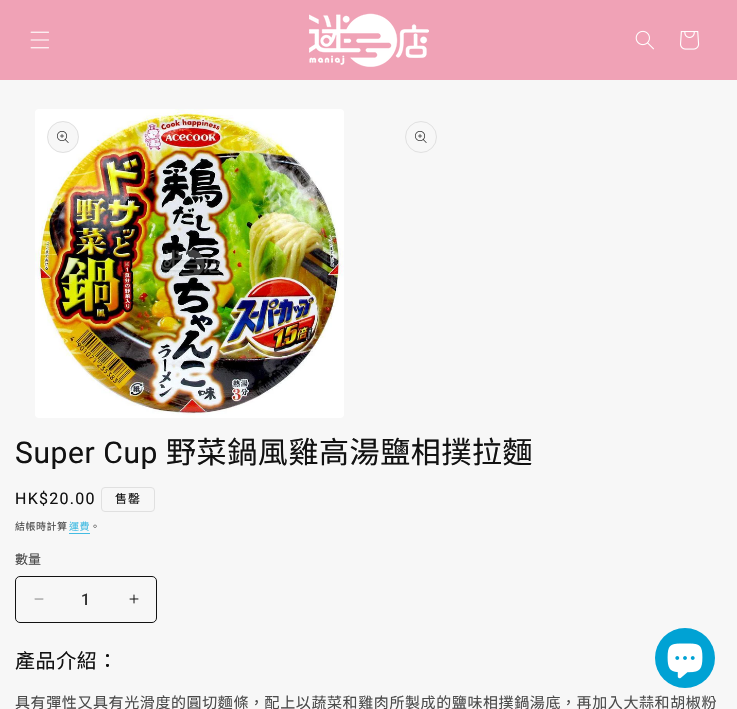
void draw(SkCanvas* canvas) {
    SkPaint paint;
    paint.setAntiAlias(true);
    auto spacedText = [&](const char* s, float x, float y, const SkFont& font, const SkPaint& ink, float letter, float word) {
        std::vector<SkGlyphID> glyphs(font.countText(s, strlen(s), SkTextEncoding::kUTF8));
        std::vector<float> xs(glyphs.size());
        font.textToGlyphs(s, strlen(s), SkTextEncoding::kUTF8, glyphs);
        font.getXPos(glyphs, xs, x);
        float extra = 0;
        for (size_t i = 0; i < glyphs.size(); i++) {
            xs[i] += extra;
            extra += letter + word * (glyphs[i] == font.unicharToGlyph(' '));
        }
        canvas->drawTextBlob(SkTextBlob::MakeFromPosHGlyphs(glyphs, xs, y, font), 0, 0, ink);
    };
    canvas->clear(0xFFF0A2B6);
    canvas->drawImageRect(SkImages::DeferredFromEncodedData(SkData::MakeFromFileName("img1.png")), SkRect::MakeXYWH(30, 31, 19, 18), SkSamplingOptions());
    canvas->drawImageRect(SkImages::DeferredFromEncodedData(SkData::MakeFromFileName("img2.png")), SkRect::MakeXYWH(309, 13, 120, 54), SkSamplingOptions());
    canvas->drawImageRect(SkImages::DeferredFromEncodedData(SkData::MakeFromFileName("img3.png")), SkRect::MakeXYWH(635, 30, 19, 20), SkSamplingOptions());
    canvas->drawImageRect(SkImages::DeferredFromEncodedData(SkData::MakeFromFileName("img4.png")), SkRect::MakeXYWH(680, 31, 20, 19), SkSamplingOptions());
    paint.setColor(0xFFF7F7F7);
    canvas->drawRect(SkRect::MakeXYWH(0, 80, 737, 629), paint);
    canvas->drawImageRect(SkImages::DeferredFromEncodedData(SkData::MakeFromFileName("img5.png")), SkRect::MakeXYWH(35, 109, 309, 309), SkSamplingOptions());
    canvas->drawCircle(63, 137, 16, paint);
    paint.setStyle(SkPaint::kStroke_Style);
    paint.setStrokeWidth(1);
    paint.setColor(0x1A121212);
    canvas->drawCircle(63, 137, 15.5f, paint);
    canvas->drawImageRect(SkImages::DeferredFromEncodedData(SkData::MakeFromFileName("img6.png")), SkRect::MakeXYWH(57, 131, 12, 12), SkSamplingOptions());
    paint.setColor(0xFFE0E0E0);
    canvas->drawCircle(421, 137, 15.5f, paint);
    canvas->drawImageRect(SkImages::DeferredFromEncodedData(SkData::MakeFromFileName("img6.png")), SkRect::MakeXYWH(415, 131, 12, 12), SkSamplingOptions());
    SkFont font1(fontMgr->matchFamilyStyle("Roboto", SkFontStyle::Normal()), 30);
    font1.setSubpixel(true);
    paint.setStyle(SkPaint::kFill_Style);
    paint.setColor(0xFF121212);
    spacedText("Super Cup", 15, 463, font1, paint, 0.6f, 0);
    SkFont font2(fontMgr->matchFamilyStyle("Noto Sans CJK TC", SkFontStyle::Normal()), 30);
    font2.setSubpixel(true);
    spacedText("野菜鍋風雞高湯鹽相撲拉麵", 166, 463, font2, paint, 0.6f, 0);
    SkFont font3(fontMgr->matchFamilyStyle("Roboto", SkFontStyle::Normal()), 16);
    font3.setSubpixel(true);
    spacedText("HK$20.00", 15, 504, font3, paint, 1.25f, 0);
    paint.setStyle(SkPaint::kStroke_Style);
    paint.setColor(0xFFE0E0E0);
    canvas->drawRoundRect(SkRect::MakeXYWH(101.5f, 487.5f, 53, 24), 3.5f, 3.5f, paint);
    SkFont font4(fontMgr->matchFamilyStyle("Noto Sans CJK TC", SkFontStyle::Normal()), 12);
    font4.setSubpixel(true);
    paint.setStyle(SkPaint::kFill_Style);
    paint.setColor(0xFF121212);
    spacedText("售罄", 115, 503, font4, paint, 1, 0);
    SkFont font5(fontMgr->matchFamilyStyle("Noto Sans CJK TC", SkFontStyle::Normal()), 10);
    font5.setSubpixel(true);
    paint.setColor(0xFF4B4B4B);
    spacedText("結帳時計算", 15, 530, font5, paint, 0.5f, 0);
    paint.setColor(0xFF43BCE3);
    spacedText("運費", 69, 530, font5, paint, 0.5f, 0);
    canvas->drawRect(SkRect::MakeXYWH(69, 533, 21, 1), paint);
    paint.setColor(0xFF4B4B4B);
    spacedText("。", 90, 530, font5, paint, 0.5f, 0);
    SkFont font6(fontMgr->matchFamilyStyle("Noto Sans CJK TC", SkFontStyle::Normal()), 13);
    font6.setSubpixel(true);
    canvas->drawString("數量", 15, 564, font6, paint);
    canvas->drawImageRect(SkImages::DeferredFromEncodedData(SkData::MakeFromFileName("img7.png")), SkRect::MakeXYWH(34, 598, 10, 2), SkSamplingOptions());
    canvas->drawImageRect(SkImages::DeferredFromEncodedData(SkData::MakeFromFileName("img8.png")), SkRect::MakeXYWH(129, 594, 10, 10), SkSamplingOptions());
    paint.setStyle(SkPaint::kStroke_Style);
    paint.setColor(0xFF121212);
    canvas->drawRoundRect(SkRect::MakeXYWH(15.5f, 576.5f, 141, 46), 4.5f, 4.5f, paint);
    SkFont font7(fontMgr->matchFamilyStyle("Roboto", SkFontStyle(500, SkFontStyle::kNormal_Width, SkFontStyle::kUpright_Slant)), 16);
    font7.setSubpixel(true);
    paint.setStyle(SkPaint::kFill_Style);
    paint.setColor(0xFF343434);
    canvas->drawString("1", 81, 605, font7, paint);
    SkFont font8(fontMgr->matchFamilyStyle("Noto Sans CJK TC", SkFontStyle::Normal()), 20);
    font8.setSubpixel(true);
    paint.setColor(0xFF121212);
    spacedText("產品介紹：", 15, 668, font8, paint, 0.6f, 0);
    SkFont font9(fontMgr->matchFamilyStyle("Noto Sans CJK TC", SkFontStyle::Normal()), 15);
    font9.setSubpixel(true);
    paint.setColor(0xFF4B4B4B);
    spacedText("具有彈性又具有光滑度的圓切麵條，配上以蔬菜和雞肉所製成的鹽味相撲鍋湯底，再加入大蒜和胡椒粉", 15, 708, font9, paint, 0.6f, 0);
    paint.setColor(0xFF00A2D4);
    canvas->drawCircle(685, 658, 30, paint);
    canvas->drawImageRect(SkImages::DeferredFromEncodedData(SkData::MakeFromFileName("img9.png")), SkRect::MakeXYWH(667, 643, 36, 36), SkSamplingOptions());
}
